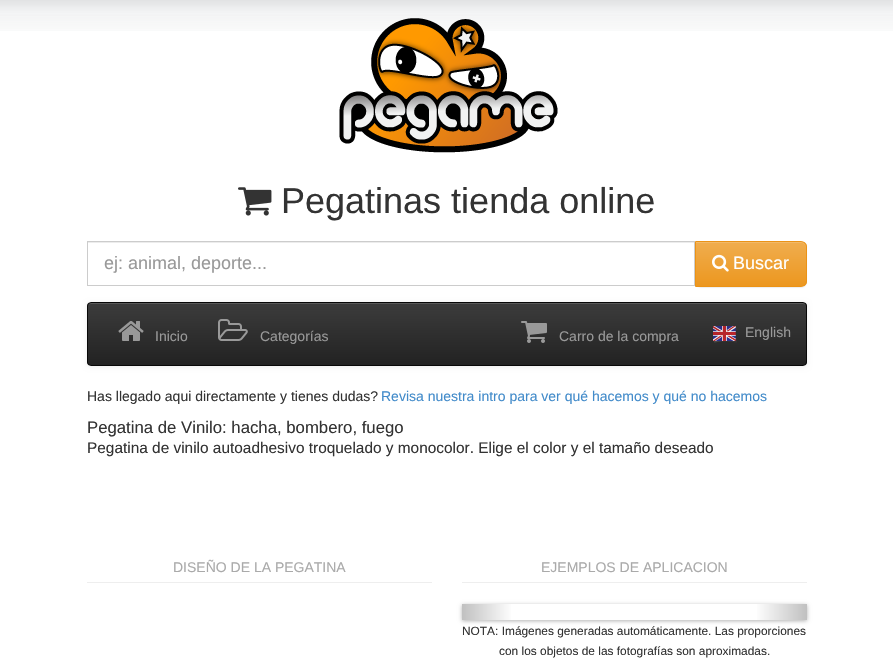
void draw(SkCanvas* canvas) {
    SkPaint paint;
    paint.setAntiAlias(true);
    canvas->clear(0xFFFFFFFF);
    canvas->drawImageRect(SkImages::DeferredFromEncodedData(SkData::MakeFromFileName("img1.png")), SkRect::MakeXYWH(0, 0, 893, 31), SkSamplingOptions());
    canvas->drawImageRect(SkImages::DeferredFromEncodedData(SkData::MakeFromFileName("img2.png")), SkRect::MakeXYWH(339, 18, 219, 135), SkSamplingOptions());
    canvas->drawImageRect(SkImages::DeferredFromEncodedData(SkData::MakeFromFileName("img3.png")), SkRect::MakeXYWH(238, 187, 34, 29), SkSamplingOptions());
    SkFont font1(fontMgr->matchFamilyStyle("Liberation Sans", SkFontStyle::Normal()), 36);
    font1.setSubpixel(true);
    paint.setColor(0xFF333333);
    canvas->drawString("Pegatinas tienda online", 281, 213, font1, paint);
    paint.setColor(0x12000000);
    paint.setMaskFilter(SkMaskFilter::MakeBlur(kNormal_SkBlurStyle, 0.5f));
    canvas->drawRoundRect(SkRect::MakeXYWH(695, 242, 112, 46), 6, 6, paint);
    paint.setMaskFilter(nullptr);
    paint.setColor(0xFFECECEC);
    canvas->drawRect(SkRect::MakeXYWH(88, 242, 606, 1), paint);
    paint.setStyle(SkPaint::kStroke_Style);
    paint.setStrokeWidth(1);
    paint.setColor(0xFFCCCCCC);
    canvas->drawRect(SkRect::MakeXYWH(87.5f, 241.5f, 607, 44), paint);
    SkFont font2(fontMgr->matchFamilyStyle("Liberation Sans", SkFontStyle::Normal()), 18);
    font2.setSubpixel(true);
    paint.setStyle(SkPaint::kFill_Style);
    paint.setColor(0xFF999999);
    canvas->drawString("ej: animal, deporte...", 104, 269, font2, paint);
    canvas->save();
    canvas->clipPath(SkPathBuilder().moveTo(695, 241).lineTo(801, 241).cubicTo(804.5f, 241, 807, 243.5f, 807, 247).lineTo(807, 281).cubicTo(807, 284.5f, 804.5f, 287, 801, 287).lineTo(695, 287).close().detach(), true);
    {
        const SkColor colors[] = {0xFFF0AD4E, 0xFFEC971F};
        const float stops[] = {0, 1};
        const SkPoint ends[] = {{751, 242}, {751, 286}};
        paint.setShader(SkGradientShader::MakeLinear(ends, colors, stops, 2, SkTileMode::kClamp));
        paint.setAlpha(255);
    }
    canvas->drawRect(SkRect::MakeXYWH(696, 242, 111, 44), paint);
    canvas->restore();
    paint.setShader(nullptr);
    paint.setColor(0xFFF2B968);
    canvas->drawPath(SkPathBuilder().moveTo(696, 243).lineTo(801, 243).cubicTo(804, 243, 806, 245, 806, 248).lineTo(806, 247).cubicTo(806, 244, 804, 242, 801, 242).lineTo(696, 242).close().detach(), paint);
    paint.setStyle(SkPaint::kStroke_Style);
    paint.setColor(0xFFEB9316);
    canvas->drawPath(SkPathBuilder().moveTo(695.5f, 241.5f).lineTo(801, 241.5f).cubicTo(804, 241.5f, 806.5f, 244, 806.5f, 247).lineTo(806.5f, 281).cubicTo(806.5f, 284, 804, 286.5f, 801, 286.5f).lineTo(695.5f, 286.5f).close().detach(), paint);
    canvas->drawImageRect(SkImages::DeferredFromEncodedData(SkData::MakeFromFileName("img4.png")), SkRect::MakeXYWH(712, 254, 17, 18), SkSamplingOptions());
    paint.setStyle(SkPaint::kFill_Style);
    paint.setColor(0xFFFFFFFF);
    canvas->drawString("Buscar", 733, 269, font2, paint);
    paint.setColor(0x12000000);
    paint.setMaskFilter(SkMaskFilter::MakeBlur(kNormal_SkBlurStyle, 2.5f));
    canvas->drawRoundRect(SkRect::MakeXYWH(87, 303, 720, 64), 4, 4, paint);
    paint.setMaskFilter(nullptr);
    canvas->save();
    canvas->clipPath(SkPathBuilder().moveTo(91, 302).lineTo(803, 302).cubicTo(805, 302, 807, 304, 807, 306).lineTo(807, 362).cubicTo(807, 364, 805, 366, 803, 366).lineTo(91, 366).cubicTo(89, 366, 87, 364, 87, 362).lineTo(87, 306).cubicTo(87, 304, 89, 302, 91, 302).close().detach(), true);
    {
        const SkColor colors[] = {0xFF3C3C3C, 0xFF222222};
        const float stops[] = {0, 1};
        const SkPoint ends[] = {{447, 303}, {447, 365}};
        paint.setShader(SkGradientShader::MakeLinear(ends, colors, stops, 2, SkTileMode::kClamp));
        paint.setAlpha(255);
    }
    canvas->drawRect(SkRect::MakeXYWH(87, 303, 720, 62), paint);
    canvas->restore();
    paint.setShader(nullptr);
    paint.setColor(0xFF595959);
    canvas->drawPath(SkPathBuilder().moveTo(91, 304).lineTo(803, 304).cubicTo(805, 304, 806, 305, 806, 307).cubicTo(806, 305, 805, 303, 803, 303).lineTo(91, 303).cubicTo(89, 303, 88, 305, 88, 307).cubicTo(88, 305, 89, 304, 91, 304).close().detach(), paint);
    paint.setStyle(SkPaint::kStroke_Style);
    paint.setColor(0xFF080808);
    canvas->drawRoundRect(SkRect::MakeXYWH(87.5f, 302.5f, 719, 63), 3.5f, 3.5f, paint);
    canvas->drawImageRect(SkImages::DeferredFromEncodedData(SkData::MakeFromFileName("img5.png")), SkRect::MakeXYWH(118, 321, 26, 20), SkSamplingOptions());
    SkFont font3(fontMgr->matchFamilyStyle("Liberation Sans", SkFontStyle::Normal()), 14);
    font3.setSubpixel(true);
    paint.setStyle(SkPaint::kFill_Style);
    paint.setColor(0xFF999999);
    canvas->drawString("Inicio", 155, 341, font3, paint);
    canvas->drawImageRect(SkImages::DeferredFromEncodedData(SkData::MakeFromFileName("img6.png")), SkRect::MakeXYWH(218, 319, 30, 22), SkSamplingOptions());
    canvas->drawString("Categorías", 260, 341, font3, paint);
    canvas->drawImageRect(SkImages::DeferredFromEncodedData(SkData::MakeFromFileName("img7.png")), SkRect::MakeXYWH(521, 321, 26, 22), SkSamplingOptions());
    canvas->drawString("Carro de la compra", 559, 341, font3, paint);
    canvas->drawImageRect(SkImages::DeferredFromEncodedData(SkData::MakeFromFileName("img8.png")), SkRect::MakeXYWH(713, 326, 24, 17), SkSamplingOptions());
    canvas->drawString("English", 745, 337, font3, paint);
    paint.setColor(0xFF333333);
    canvas->drawString("Has llegado aqui directamente y tienes dudas?", 87, 401, font3, paint);
    paint.setColor(0xFF428BCA);
    canvas->drawString("Revisa nuestra intro para ver qué hacemos y qué no hacemos", 381, 401, font3, paint);
    SkFont font4(fontMgr->matchFamilyStyle("Liberation Sans", SkFontStyle::Normal()), 16.75f);
    font4.setSubpixel(true);
    paint.setColor(0xFF333333);
    canvas->drawString("Pegatina de Vinilo: hacha, bombero, fuego", 87, 433, font4, paint);
    SkFont font5(fontMgr->matchFamilyStyle("Liberation Sans", SkFontStyle::Normal()), 15.4f);
    font5.setSubpixel(true);
    canvas->drawString("Pegatina de vinilo autoadhesivo troquelado y monocolor. Elige el color y el tamaño deseado", 87, 453, font5, paint);
    paint.setColor(0xFFAAAAAA);
    canvas->drawString("DISEÑO DE LA PEGATINA", 173, 572, font3, paint);
    paint.setColor(0xFFEEEEEE);
    canvas->drawRect(SkRect::MakeXYWH(87, 582, 345, 1), paint);
    paint.setColor(0xFFAAAAAA);
    canvas->drawString("EJEMPLOS DE APLICACION", 541, 572, font3, paint);
    paint.setColor(0xFFEEEEEE);
    canvas->drawRect(SkRect::MakeXYWH(462, 582, 345, 1), paint);
    canvas->save();
    canvas->clipPath(SkPathBuilder(SkPathFillType::kEvenOdd).moveTo(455, 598).lineTo(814, 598).lineTo(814, 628).lineTo(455, 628).close().moveTo(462, 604).lineTo(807, 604).lineTo(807, 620).lineTo(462, 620).close().detach(), true);
    paint.setColor(0x4D000000);
    paint.setMaskFilter(SkMaskFilter::MakeBlur(kNormal_SkBlurStyle, 2));
    canvas->drawRect(SkRect::MakeXYWH(462, 605, 345, 16), paint);
    paint.setMaskFilter(nullptr);
    canvas->restore();
    {
        const SkColor colors[] = {0xFFC0C0C0, 0xFFFFFFFF};
        const float stops[] = {0, 1};
        const SkPoint ends[] = {{462, 612}, {513, 612}};
        paint.setShader(SkGradientShader::MakeLinear(ends, colors, stops, 2, SkTileMode::kClamp));
        paint.setAlpha(255);
    }
    canvas->drawRect(SkRect::MakeXYWH(462, 604, 49, 16), paint);
    {
        const SkColor colors[] = {0xFFFFFFFF, 0xFFC0C0C0};
        const float stops[] = {0, 1};
        const SkPoint ends[] = {{755, 612}, {807, 612}};
        paint.setShader(SkGradientShader::MakeLinear(ends, colors, stops, 2, SkTileMode::kClamp));
        paint.setAlpha(255);
    }
    canvas->drawRect(SkRect::MakeXYWH(757, 604, 50, 16), paint);
    SkFont font6(fontMgr->matchFamilyStyle("Liberation Sans", SkFontStyle::Normal()), 11.9f);
    font6.setSubpixel(true);
    paint.setShader(nullptr);
    paint.setColor(0xFF333333);
    canvas->drawString("NOTA: Imágenes generadas automáticamente. Las proporciones", 462, 635, font6, paint);
    canvas->drawString("con los objetos de las fotografías son aproximadas.", 499, 655, font6, paint);
}
